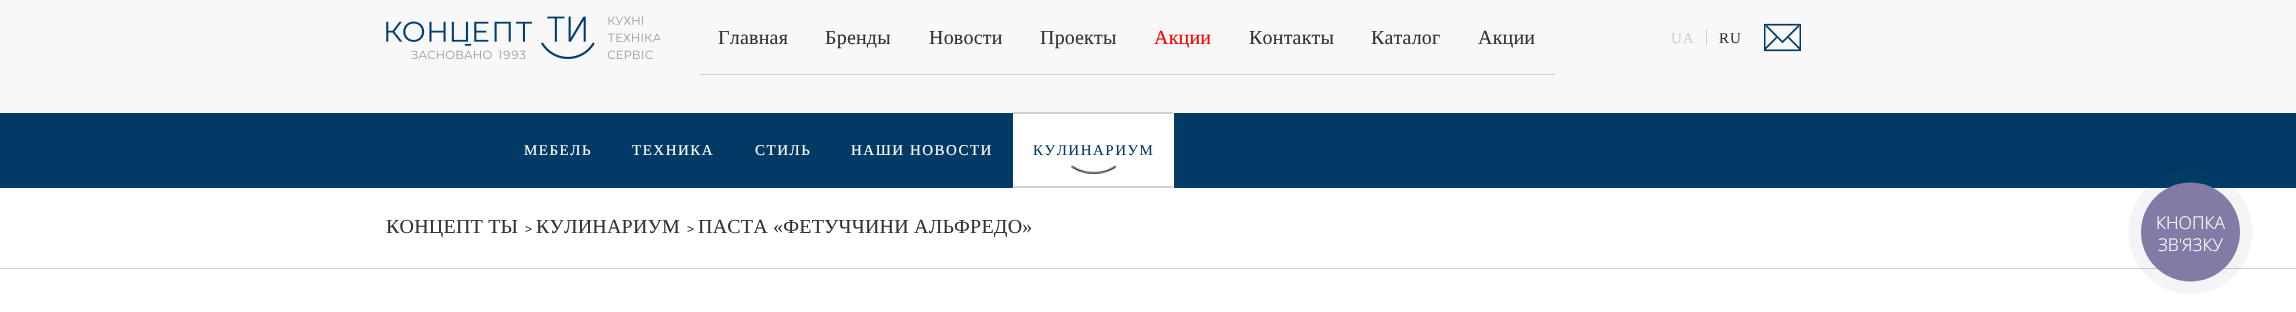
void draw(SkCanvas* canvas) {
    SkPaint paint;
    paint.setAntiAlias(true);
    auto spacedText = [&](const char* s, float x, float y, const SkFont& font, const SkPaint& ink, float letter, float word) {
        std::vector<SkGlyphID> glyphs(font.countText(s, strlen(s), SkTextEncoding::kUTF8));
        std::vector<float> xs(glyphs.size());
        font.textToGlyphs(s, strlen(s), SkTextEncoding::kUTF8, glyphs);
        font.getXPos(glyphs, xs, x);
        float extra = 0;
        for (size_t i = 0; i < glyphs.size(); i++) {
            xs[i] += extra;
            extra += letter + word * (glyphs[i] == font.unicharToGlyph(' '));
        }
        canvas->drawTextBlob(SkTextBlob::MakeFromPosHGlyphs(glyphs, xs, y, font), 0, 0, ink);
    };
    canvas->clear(0xFFFFFFFF);
    paint.setColor(0xFFF8F8F8);
    canvas->drawRect(SkRect::MakeXYWH(0, 0, 2296, 113), paint);
    canvas->drawImageRect(SkImages::DeferredFromEncodedData(SkData::MakeFromFileName("img1.png")), SkRect::MakeXYWH(386, 16, 274, 43), SkSamplingOptions());
    paint.setColor(0xFFD0D0D0);
    canvas->drawRect(SkRect::MakeXYWH(699, 74, 856, 1), paint);
    SkFont font1(fontMgr->matchFamilyStyle("Liberation Serif", SkFontStyle::Normal()), 20);
    font1.setSubpixel(true);
    paint.setColor(0xFF333333);
    spacedText("Главная", 718, 44, font1, paint, 0.2f, 0);
    spacedText("Бренды", 825, 44, font1, paint, 0.2f, 0);
    spacedText("Новости", 929, 44, font1, paint, 0.2f, 0);
    spacedText("Проекты", 1040, 44, font1, paint, 0.2f, 0);
    paint.setColor(0xFFFF0000);
    spacedText("Акции", 1154, 44, font1, paint, 0.2f, 0);
    paint.setColor(0xFF333333);
    spacedText("Контакты", 1249, 44, font1, paint, 0.2f, 0);
    spacedText("Каталог", 1371, 44, font1, paint, 0.2f, 0);
    spacedText("Акции", 1478, 44, font1, paint, 0.2f, 0);
    SkFont font2(fontMgr->matchFamilyStyle("Liberation Serif", SkFontStyle::Normal()), 15);
    font2.setSubpixel(true);
    paint.setColor(0xFFD0D0D0);
    spacedText("UA", 1671, 43, font2, paint, 1, 0);
    canvas->drawRect(SkRect::MakeXYWH(1706, 29, 1, 17), paint);
    paint.setColor(0xFF333333);
    spacedText("RU", 1719, 43, font2, paint, 1, 0);
    canvas->drawImageRect(SkImages::DeferredFromEncodedData(SkData::MakeFromFileName("img2.png")), SkRect::MakeXYWH(1764, 23, 37, 29), SkSamplingOptions());
    paint.setColor(0xFF003A65);
    canvas->drawRect(SkRect::MakeXYWH(0, 113, 2296, 75), paint);
    paint.setColor(0xFFFFFFFF);
    spacedText("МЕБЕЛЬ", 524, 155, font2, paint, 1.5f, 0);
    spacedText("ТЕХНИКА", 632, 155, font2, paint, 1.5f, 0);
    spacedText("СТИЛЬ", 755, 155, font2, paint, 1.5f, 0);
    spacedText("НАШИ НОВОСТИ", 851, 155, font2, paint, 1.5f, 0);
    canvas->drawRect(SkRect::MakeXYWH(1013, 113, 161, 75), paint);
    paint.setColor(0xFFD0D0D0);
    canvas->drawPath(SkPathBuilder().moveTo(1012, 112).lineTo(1174, 112).lineTo(1172, 114).lineTo(1014, 114).close().detach(), paint);
    canvas->drawPath(SkPathBuilder().moveTo(1174, 188).lineTo(1012, 188).lineTo(1014, 186).lineTo(1172, 186).close().detach(), paint);
    paint.setColor(0xFF003A65);
    spacedText("КУЛИНАРИУМ", 1033, 155, font2, paint, 1.5f, 0);
    canvas->drawImageRect(SkImages::DeferredFromEncodedData(SkData::MakeFromFileName("img3.png")), SkRect::MakeXYWH(1071, 165, 46, 9), SkSamplingOptions());
    paint.setColor(0xFF333333);
    spacedText("КОНЦЕПТ ТЫ", 386, 233, font1, paint, 0.2f, 0);
    SkFont font3(fontMgr->matchFamilyStyle("Liberation Sans", SkFontStyle::Normal()), 12);
    font3.setSubpixel(true);
    canvas->drawString(">", 525, 233, font3, paint);
    spacedText("КУЛИНАРИУМ", 536, 233, font1, paint, 0.2f, 0);
    canvas->drawString(">", 687, 233, font3, paint);
    spacedText("ПАСТА «ФЕТУЧЧИНИ АЛЬФРЕДО»", 698, 233, font1, paint, 0.2f, 0);
    paint.setColor(0xFFD0D0D0);
    canvas->drawRect(SkRect::MakeXYWH(0, 268, 2296, 1), paint);
    paint.setColor(0x0F2A405D);
    canvas->drawCircle(2190.5f, 232, 62, paint);
    paint.setColor(0xFF837BA6);
    canvas->drawCircle(2190.5f, 232, 49.5f, paint);
    SkFont font4(fontMgr->matchFamilyStyle("Open Sans", SkFontStyle(300, SkFontStyle::kNormal_Width, SkFontStyle::kUpright_Slant)), 17.5f);
    font4.setSubpixel(true);
    paint.setColor(0xFFFFFFFF);
    canvas->drawString("КНОПКА", 2156, 229, font4, paint);
    canvas->drawString("ЗВ'ЯЗКУ", 2158, 251, font4, paint);
}
